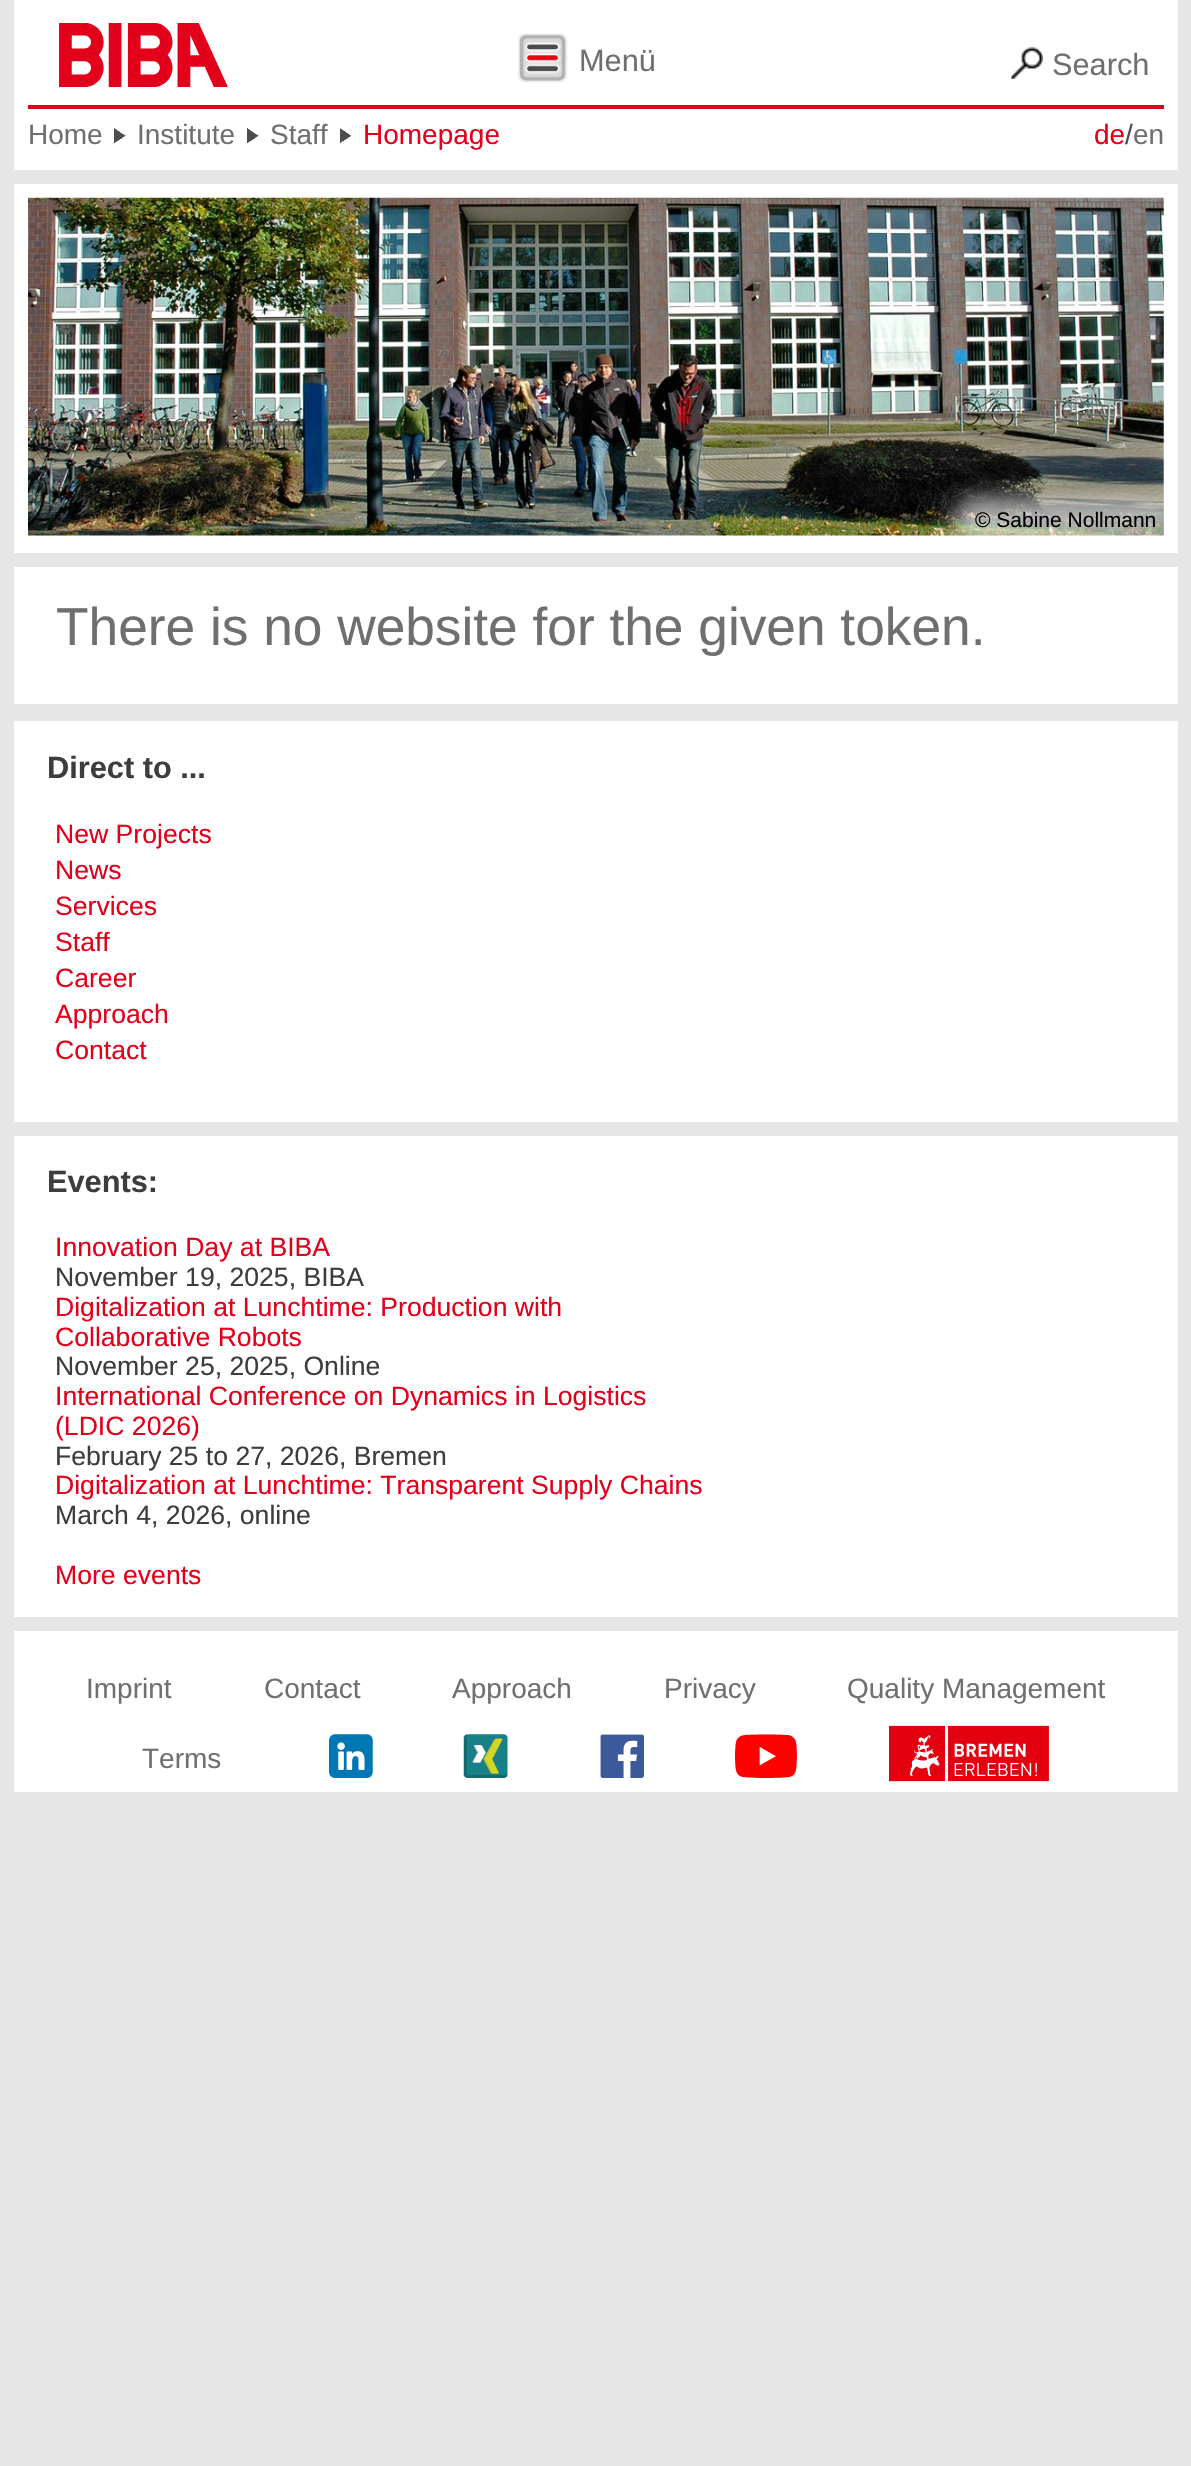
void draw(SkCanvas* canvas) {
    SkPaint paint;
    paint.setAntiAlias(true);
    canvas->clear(0xFFE6E6E6);
    paint.setColor(0xFFFFFFFF);
    canvas->drawRect(SkRect::MakeXYWH(14, 0, 1164, 170), paint);
    canvas->drawImageRect(SkImages::DeferredFromEncodedData(SkData::MakeFromFileName("img1.png")), SkRect::MakeXYWH(59, 23, 169, 64), SkSamplingOptions());
    canvas->drawImageRect(SkImages::DeferredFromEncodedData(SkData::MakeFromFileName("img2.png")), SkRect::MakeXYWH(517, 33, 51, 50), SkSamplingOptions());
    SkFont font1(fontMgr->matchFamilyStyle("Liberation Sans", SkFontStyle::Normal()), 30.75f);
    font1.setSubpixel(true);
    paint.setColor(0xFF706F6F);
    canvas->drawString("Menü", 579, 71, font1, paint);
    canvas->drawImageRect(SkImages::DeferredFromEncodedData(SkData::MakeFromFileName("img3.png")), SkRect::MakeXYWH(1011, 46, 32, 33), SkSamplingOptions());
    canvas->drawString("Search", 1052, 75, font1, paint);
    paint.setColor(0xFFE2001A);
    canvas->drawRect(SkRect::MakeXYWH(28, 105, 1136, 4), paint);
    SkFont font2(fontMgr->matchFamilyStyle("Liberation Sans", SkFontStyle::Normal()), 28);
    font2.setSubpixel(true);
    paint.setColor(0xFF706F6F);
    canvas->drawString("Home", 28, 144, font2, paint);
    canvas->drawImageRect(SkImages::DeferredFromEncodedData(SkData::MakeFromFileName("img4.png")), SkRect::MakeXYWH(114, 128, 12, 15), SkSamplingOptions());
    canvas->drawString("Institute", 137, 144, font2, paint);
    canvas->drawImageRect(SkImages::DeferredFromEncodedData(SkData::MakeFromFileName("img4.png")), SkRect::MakeXYWH(247, 128, 12, 15), SkSamplingOptions());
    canvas->drawString("Staff", 270, 144, font2, paint);
    canvas->drawImageRect(SkImages::DeferredFromEncodedData(SkData::MakeFromFileName("img5.png")), SkRect::MakeXYWH(340, 128, 12, 15), SkSamplingOptions());
    paint.setColor(0xFFE2001A);
    canvas->drawString("Homepage", 363, 144, font2, paint);
    canvas->drawString("de", 1094, 144, font2, paint);
    paint.setColor(0xFF4D4D4D);
    canvas->drawString("/", 1125, 144, font2, paint);
    paint.setColor(0xFF706F6F);
    canvas->drawString("en", 1133, 144, font2, paint);
    paint.setColor(0xFFFFFFFF);
    canvas->drawRect(SkRect::MakeXYWH(14, 184, 1164, 369), paint);
    canvas->drawImageRect(SkImages::DeferredFromEncodedData(SkData::MakeFromFileName("img6.png")), SkRect::MakeXYWH(28, 197, 1136, 339), SkSamplingOptions());
    canvas->drawRect(SkRect::MakeXYWH(14, 567, 1164, 137), paint);
    canvas->save();
    canvas->clipRect(SkRect::MakeXYWH(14, 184, 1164, 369));
    paint.setColor(0xA6FFFFFF);
    paint.setMaskFilter(SkMaskFilter::MakeBlur(kNormal_SkBlurStyle, 10.5f));
    canvas->drawRoundRect(SkRect::MakeXYWH(954, 497, 224, 46), 21, 21, paint);
    paint.setMaskFilter(nullptr);
    canvas->restore();
    SkFont font3(fontMgr->matchFamilyStyle("Liberation Sans", SkFontStyle::Normal()), 21);
    font3.setSubpixel(true);
    paint.setColor(0xFF000000);
    canvas->drawString("© Sabine Nollmann", 975, 527, font3, paint);
    SkFont font4(fontMgr->matchFamilyStyle("Liberation Sans", SkFontStyle::Normal()), 53.25f);
    font4.setSubpixel(true);
    paint.setColor(0xFF706F6F);
    canvas->drawString("There is no website for the given token.", 56, 645, font4, paint);
    paint.setColor(0xFFFFFFFF);
    canvas->drawRect(SkRect::MakeXYWH(14, 721, 1164, 401), paint);
    SkFont font5(fontMgr->matchFamilyStyle("Liberation Sans", SkFontStyle::Bold()), 30.75f);
    font5.setSubpixel(true);
    paint.setColor(0xFF3D3D3D);
    canvas->drawString("Direct to ...", 47, 778, font5, paint);
    SkFont font6(fontMgr->matchFamilyStyle("Liberation Sans", SkFontStyle::Normal()), 26.6f);
    font6.setSubpixel(true);
    paint.setColor(0xFFE2001A);
    canvas->drawString("New Projects", 55, 843, font6, paint);
    canvas->drawString("News", 55, 879, font6, paint);
    canvas->drawString("Services", 55, 915, font6, paint);
    canvas->drawString("Staff", 55, 951, font6, paint);
    canvas->drawString("Career", 55, 987, font6, paint);
    canvas->drawString("Approach", 55, 1023, font6, paint);
    canvas->drawString("Contact", 55, 1059, font6, paint);
    paint.setColor(0xFFFFFFFF);
    canvas->drawRect(SkRect::MakeXYWH(14, 1136, 1164, 481), paint);
    paint.setColor(0xFF3D3D3D);
    canvas->drawString("Events:", 47, 1192, font5, paint);
    paint.setColor(0xFFE2001A);
    canvas->drawString("Innovation Day at BIBA", 55, 1256, font6, paint);
    paint.setColor(0xFF3D3D3D);
    canvas->drawString("November 19, 2025, BIBA", 55, 1286, font6, paint);
    paint.setColor(0xFFE2001A);
    canvas->drawString("Digitalization at Lunchtime: Production with", 55, 1316, font6, paint);
    canvas->drawString("Collaborative Robots", 55, 1346, font6, paint);
    paint.setColor(0xFF3D3D3D);
    canvas->drawString("November 25, 2025, Online", 55, 1375, font6, paint);
    paint.setColor(0xFFE2001A);
    canvas->drawString("International Conference on Dynamics in Logistics", 55, 1405, font6, paint);
    canvas->drawString("(LDIC 2026)", 55, 1435, font6, paint);
    paint.setColor(0xFF3D3D3D);
    canvas->drawString("February 25 to 27, 2026, Bremen", 55, 1465, font6, paint);
    paint.setColor(0xFFE2001A);
    canvas->drawString("Digitalization at Lunchtime: Transparent Supply Chains", 55, 1494, font6, paint);
    paint.setColor(0xFF3D3D3D);
    canvas->drawString("March 4, 2026, online", 55, 1524, font6, paint);
    paint.setColor(0xFFE2001A);
    canvas->drawString("More events", 55, 1584, font6, paint);
    paint.setColor(0xFFFFFFFF);
    canvas->drawRect(SkRect::MakeXYWH(14, 1631, 1164, 161), paint);
    paint.setColor(0xFF706F6F);
    canvas->drawString("Imprint", 86, 1698, font2, paint);
    canvas->drawString("Contact", 264, 1698, font2, paint);
    canvas->drawString("Approach", 452, 1698, font2, paint);
    canvas->drawString("Privacy", 664, 1698, font2, paint);
    canvas->drawString("Quality Management", 847, 1698, font2, paint);
    canvas->drawString("Terms", 142, 1768, font2, paint);
    canvas->drawImageRect(SkImages::DeferredFromEncodedData(SkData::MakeFromFileName("img7.png")), SkRect::MakeXYWH(329, 1734, 44, 44), SkSamplingOptions());
    canvas->drawImageRect(SkImages::DeferredFromEncodedData(SkData::MakeFromFileName("img8.png")), SkRect::MakeXYWH(463, 1734, 45, 44), SkSamplingOptions());
    canvas->drawImageRect(SkImages::DeferredFromEncodedData(SkData::MakeFromFileName("img9.png")), SkRect::MakeXYWH(600, 1734, 44, 44), SkSamplingOptions());
    canvas->drawImageRect(SkImages::DeferredFromEncodedData(SkData::MakeFromFileName("img10.png")), SkRect::MakeXYWH(735, 1734, 62, 44), SkSamplingOptions());
    canvas->drawImageRect(SkImages::DeferredFromEncodedData(SkData::MakeFromFileName("img11.png")), SkRect::MakeXYWH(889, 1725, 160, 57), SkSamplingOptions());
}
